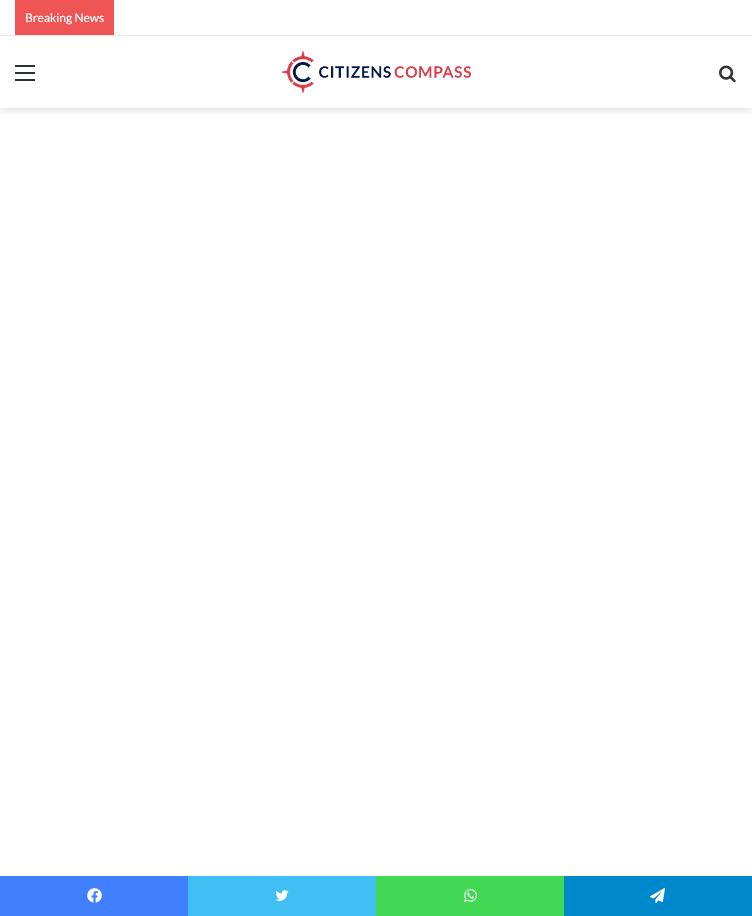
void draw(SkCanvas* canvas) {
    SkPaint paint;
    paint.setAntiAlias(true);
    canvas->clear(0xFFFFFFFF);
    canvas->save();
    canvas->clipRect(SkRect::MakeXYWH(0, 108, 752, 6));
    paint.setColor(0x1A000000);
    paint.setMaskFilter(SkMaskFilter::MakeBlur(kNormal_SkBlurStyle, 3.5f));
    canvas->drawRect(SkRect::MakeXYWH(0, 39, 752, 72), paint);
    paint.setMaskFilter(nullptr);
    canvas->restore();
    paint.setColor(0xFFE6E6E6);
    canvas->drawRect(SkRect::MakeXYWH(0, 35, 752, 1), paint);
    paint.setColor(0xFFF05555);
    canvas->drawRect(SkRect::MakeXYWH(15, 0, 99, 35), paint);
    SkFont font1(fontMgr->matchFamilyStyle("Lato", SkFontStyle::Normal()), 12);
    font1.setSubpixel(true);
    paint.setColor(0xFFFFFFFF);
    canvas->drawString("Breaking News", 25, 22, font1, paint);
    paint.setColor(0xFF2C2F34);
    canvas->drawRect(SkRect::MakeXYWH(15, 72, 20, 2), paint);
    canvas->drawRect(SkRect::MakeXYWH(15, 65, 20, 2), paint);
    canvas->drawRect(SkRect::MakeXYWH(15, 79, 20, 2), paint);
    canvas->drawImageRect(SkImages::DeferredFromEncodedData(SkData::MakeFromFileName("img1.png")), SkRect::MakeXYWH(281, 50, 190, 44), SkSamplingOptions());
    canvas->drawImageRect(SkImages::DeferredFromEncodedData(SkData::MakeFromFileName("img2.png")), SkRect::MakeXYWH(719, 65, 17, 18), SkSamplingOptions());
    paint.setColor(0xFF4080FF);
    canvas->drawRect(SkRect::MakeXYWH(0, 876, 188, 40), paint);
    canvas->drawImageRect(SkImages::DeferredFromEncodedData(SkData::MakeFromFileName("img3.png")), SkRect::MakeXYWH(87, 888, 15, 15), SkSamplingOptions());
    paint.setColor(0xFF40BFF5);
    canvas->drawRect(SkRect::MakeXYWH(188, 876, 188, 40), paint);
    canvas->drawImageRect(SkImages::DeferredFromEncodedData(SkData::MakeFromFileName("img4.png")), SkRect::MakeXYWH(275, 890, 14, 11), SkSamplingOptions());
    paint.setColor(0xFF43D854);
    canvas->drawRect(SkRect::MakeXYWH(376, 876, 188, 40), paint);
    canvas->drawImageRect(SkImages::DeferredFromEncodedData(SkData::MakeFromFileName("img5.png")), SkRect::MakeXYWH(464, 889, 13, 13), SkSamplingOptions());
    paint.setColor(0xFF0088CC);
    canvas->drawRect(SkRect::MakeXYWH(564, 876, 188, 40), paint);
    canvas->drawImageRect(SkImages::DeferredFromEncodedData(SkData::MakeFromFileName("img6.png")), SkRect::MakeXYWH(650, 888, 15, 15), SkSamplingOptions());
}
